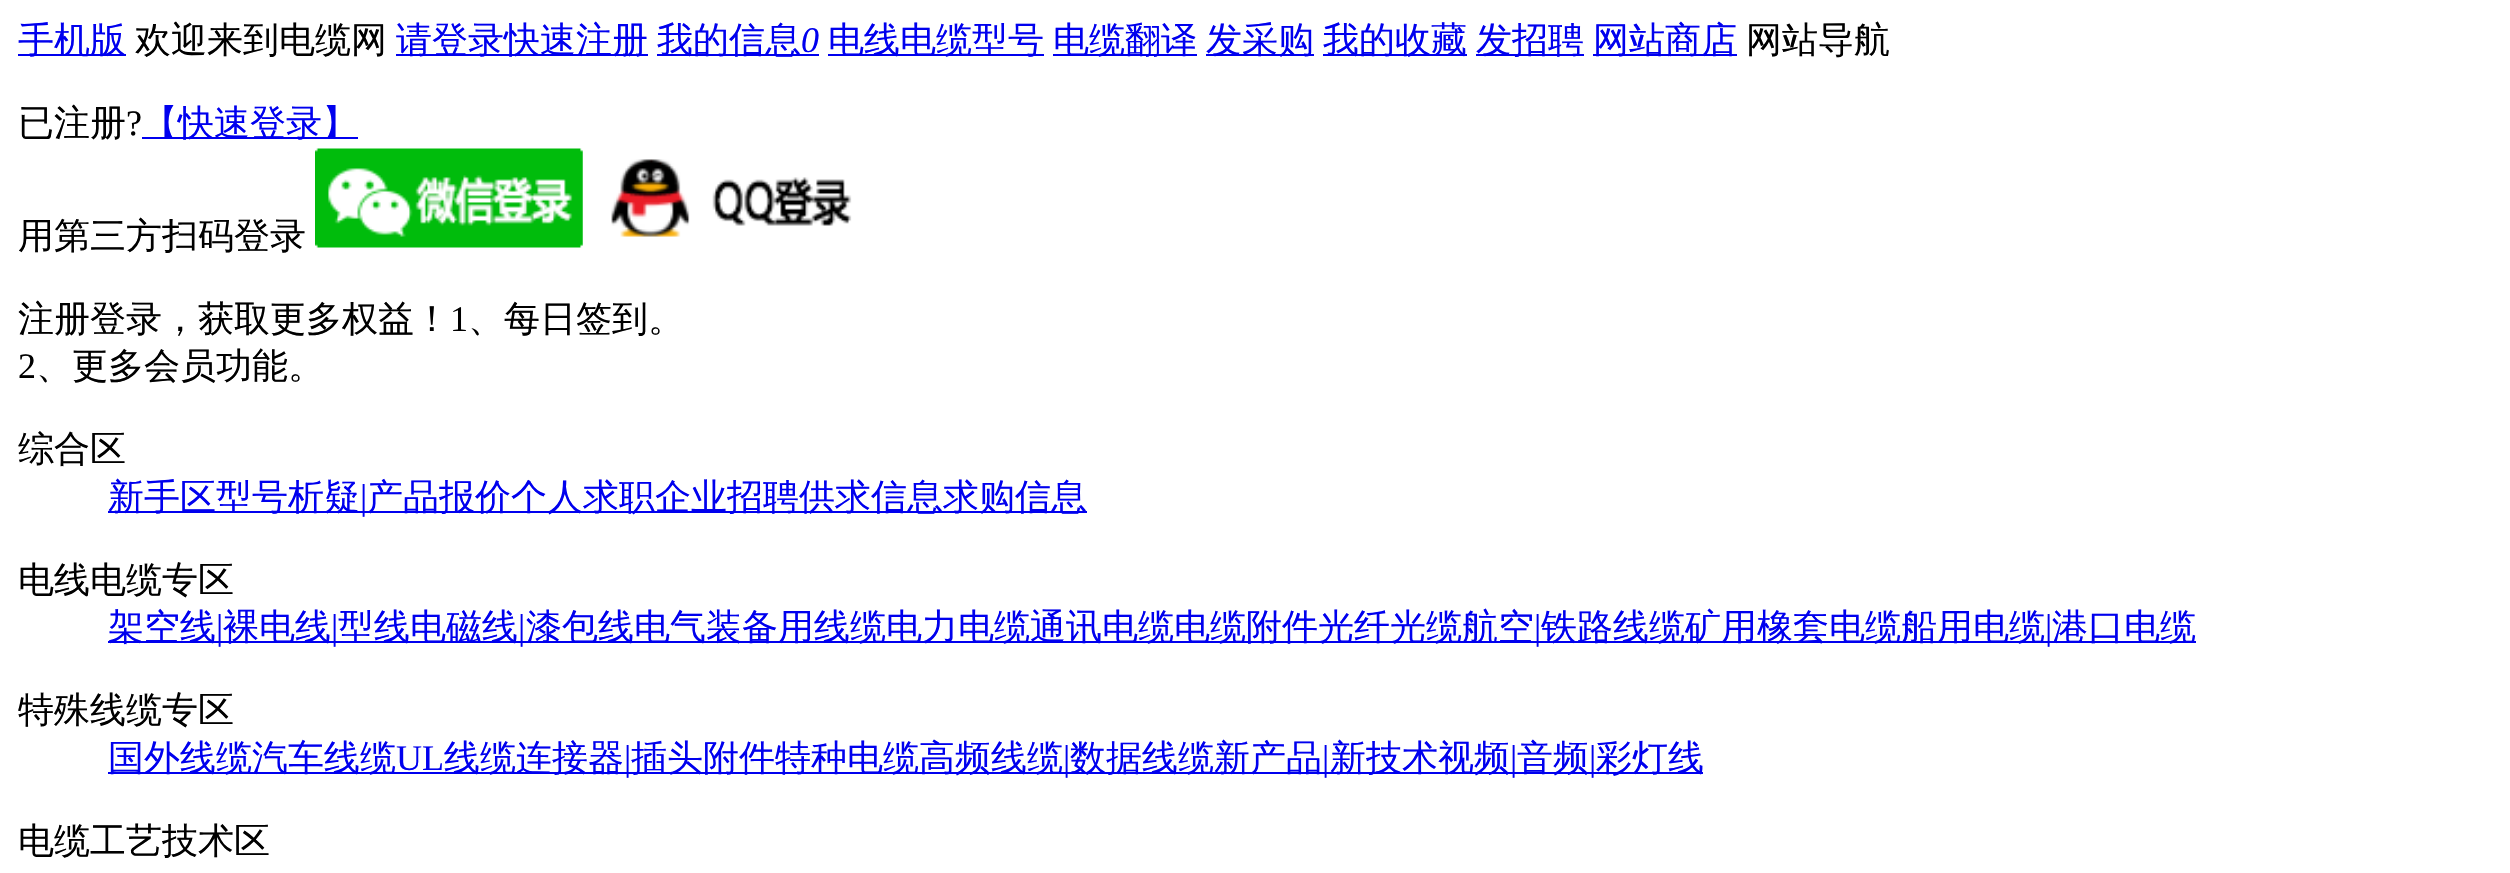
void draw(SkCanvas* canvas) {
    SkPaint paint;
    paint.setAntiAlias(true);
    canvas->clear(0xFFFFFFFF);
    paint.setColor(0xFF0000EE);
    canvas->drawRect(SkRect::MakeXYWH(18, 54, 108, 2), paint);
    SkFont font1(fontMgr->matchFamilyStyle("WenQuanYi Zen Hei", SkFontStyle(500, SkFontStyle::kNormal_Width, SkFontStyle::kUpright_Slant)), 36);
    font1.setSubpixel(true);
    canvas->drawString("手机版", 18, 52, font1, paint);
    paint.setColor(0xFF000000);
    canvas->drawString("欢迎来到电缆网", 135, 52, font1, paint);
    paint.setColor(0xFF0000EE);
    canvas->drawRect(SkRect::MakeXYWH(396, 54, 252, 2), paint);
    canvas->drawString("请登录快速注册", 396, 52, font1, paint);
    canvas->drawRect(SkRect::MakeXYWH(657, 54, 162, 2), paint);
    canvas->drawString("我的信息", 657, 52, font1, paint);
    SkFont font2(fontMgr->matchFamilyStyle("Liberation Serif", SkFontStyle::Italic()), 36);
    font2.setSubpixel(true);
    canvas->drawString("0", 801, 52, font2, paint);
    canvas->drawRect(SkRect::MakeXYWH(828, 54, 216, 2), paint);
    canvas->drawString("电线电缆型号", 828, 52, font1, paint);
    canvas->drawRect(SkRect::MakeXYWH(1053, 54, 144, 2), paint);
    canvas->drawString("电缆翻译", 1053, 52, font1, paint);
    canvas->drawRect(SkRect::MakeXYWH(1206, 54, 108, 2), paint);
    canvas->drawString("发采购", 1206, 52, font1, paint);
    canvas->drawRect(SkRect::MakeXYWH(1323, 54, 144, 2), paint);
    canvas->drawString("我的收藏", 1323, 52, font1, paint);
    canvas->drawRect(SkRect::MakeXYWH(1476, 54, 108, 2), paint);
    canvas->drawString("发招聘", 1476, 52, font1, paint);
    canvas->drawRect(SkRect::MakeXYWH(1593, 54, 144, 2), paint);
    canvas->drawString("网站商店", 1593, 52, font1, paint);
    paint.setColor(0xFF000000);
    canvas->drawString("网站导航", 1746, 52, font1, paint);
    canvas->drawString("已注册", 18, 135, font1, paint);
    SkFont font3(fontMgr->matchFamilyStyle("Liberation Serif", SkFontStyle::Normal()), 36);
    font3.setSubpixel(true);
    canvas->drawString("?", 126, 135, font3, paint);
    paint.setColor(0xFF0000EE);
    canvas->drawRect(SkRect::MakeXYWH(142, 137, 216, 2), paint);
    canvas->drawString("【快速登录】", 142, 135, font1, paint);
    paint.setColor(0xFF000000);
    canvas->drawString("用第三方扫码登录", 18, 248, font1, paint);
    canvas->drawImageRect(SkImages::DeferredFromEncodedData(SkData::MakeFromFileName("img1.png")), SkRect::MakeXYWH(315, 148, 268, 100), SkSamplingOptions());
    canvas->drawImageRect(SkImages::DeferredFromEncodedData(SkData::MakeFromFileName("img2.png")), SkRect::MakeXYWH(611, 159, 241, 78), SkSamplingOptions());
    canvas->drawString("注册登录，获取更多权益！", 18, 331, font1, paint);
    canvas->drawString("1", 450, 331, font3, paint);
    canvas->drawString("、每日签到。", 468, 331, font1, paint);
    canvas->drawString("2", 18, 378, font3, paint);
    canvas->drawString("、更多会员功能。", 36, 378, font1, paint);
    canvas->drawString("综合区", 18, 461, font1, paint);
    paint.setColor(0xFF0000EE);
    canvas->drawRect(SkRect::MakeXYWH(108, 511, 547, 2), paint);
    canvas->drawString("新手区型号析疑", 108, 509, font1, paint);
    canvas->drawString("|", 360, 509, font3, paint);
    canvas->drawString("产品报价个人求职", 367, 509, font1, paint);
    canvas->drawRect(SkRect::MakeXYWH(655, 511, 432, 2), paint);
    canvas->drawString("企业招聘供求信息求购信息", 655, 509, font1, paint);
    paint.setColor(0xFF000000);
    canvas->drawString("电线电缆专区", 18, 592, font1, paint);
    paint.setColor(0xFF0000EE);
    canvas->drawRect(SkRect::MakeXYWH(108, 641, 2088, 2), paint);
    canvas->drawString("架空线", 108, 639, font1, paint);
    canvas->drawString("|", 216, 639, font3, paint);
    canvas->drawString("裸电线", 223, 639, font1, paint);
    canvas->drawString("|", 331, 639, font3, paint);
    canvas->drawString("型线电磁线", 338, 639, font1, paint);
    canvas->drawString("|", 518, 639, font3, paint);
    canvas->drawString("漆包线电气装备用线缆电力电缆通讯电缆电缆附件光纤光缆航空", 526, 639, font1, paint);
    canvas->drawString("|", 1534, 639, font3, paint);
    canvas->drawString("铁路线缆矿用橡套电缆船用电缆", 1541, 639, font1, paint);
    canvas->drawString("|", 2045, 639, font3, paint);
    canvas->drawString("港口电缆", 2052, 639, font1, paint);
    paint.setColor(0xFF000000);
    canvas->drawString("特殊线缆专区", 18, 722, font1, paint);
    paint.setColor(0xFF0000EE);
    canvas->drawRect(SkRect::MakeXYWH(108, 772, 407, 2), paint);
    canvas->drawString("国外线缆汽车线缆", 108, 770, font1, paint);
    canvas->drawString("UL", 396, 770, font3, paint);
    canvas->drawString("线缆", 444, 770, font1, paint);
    canvas->drawRect(SkRect::MakeXYWH(515, 772, 1188, 2), paint);
    canvas->drawString("连接器", 516, 770, font1, paint);
    canvas->drawString("|", 624, 770, font3, paint);
    canvas->drawString("插头附件特种电缆高频线缆", 631, 770, font1, paint);
    canvas->drawString("|", 1063, 770, font3, paint);
    canvas->drawString("数据线缆新产品", 1070, 770, font1, paint);
    canvas->drawString("|", 1322, 770, font3, paint);
    canvas->drawString("新技术视频", 1330, 770, font1, paint);
    canvas->drawString("|", 1510, 770, font3, paint);
    canvas->drawString("音频", 1517, 770, font1, paint);
    canvas->drawString("|", 1589, 770, font3, paint);
    canvas->drawString("彩灯线", 1596, 770, font1, paint);
    paint.setColor(0xFF000000);
    canvas->drawString("电缆工艺技术区", 18, 853, font1, paint);
}
